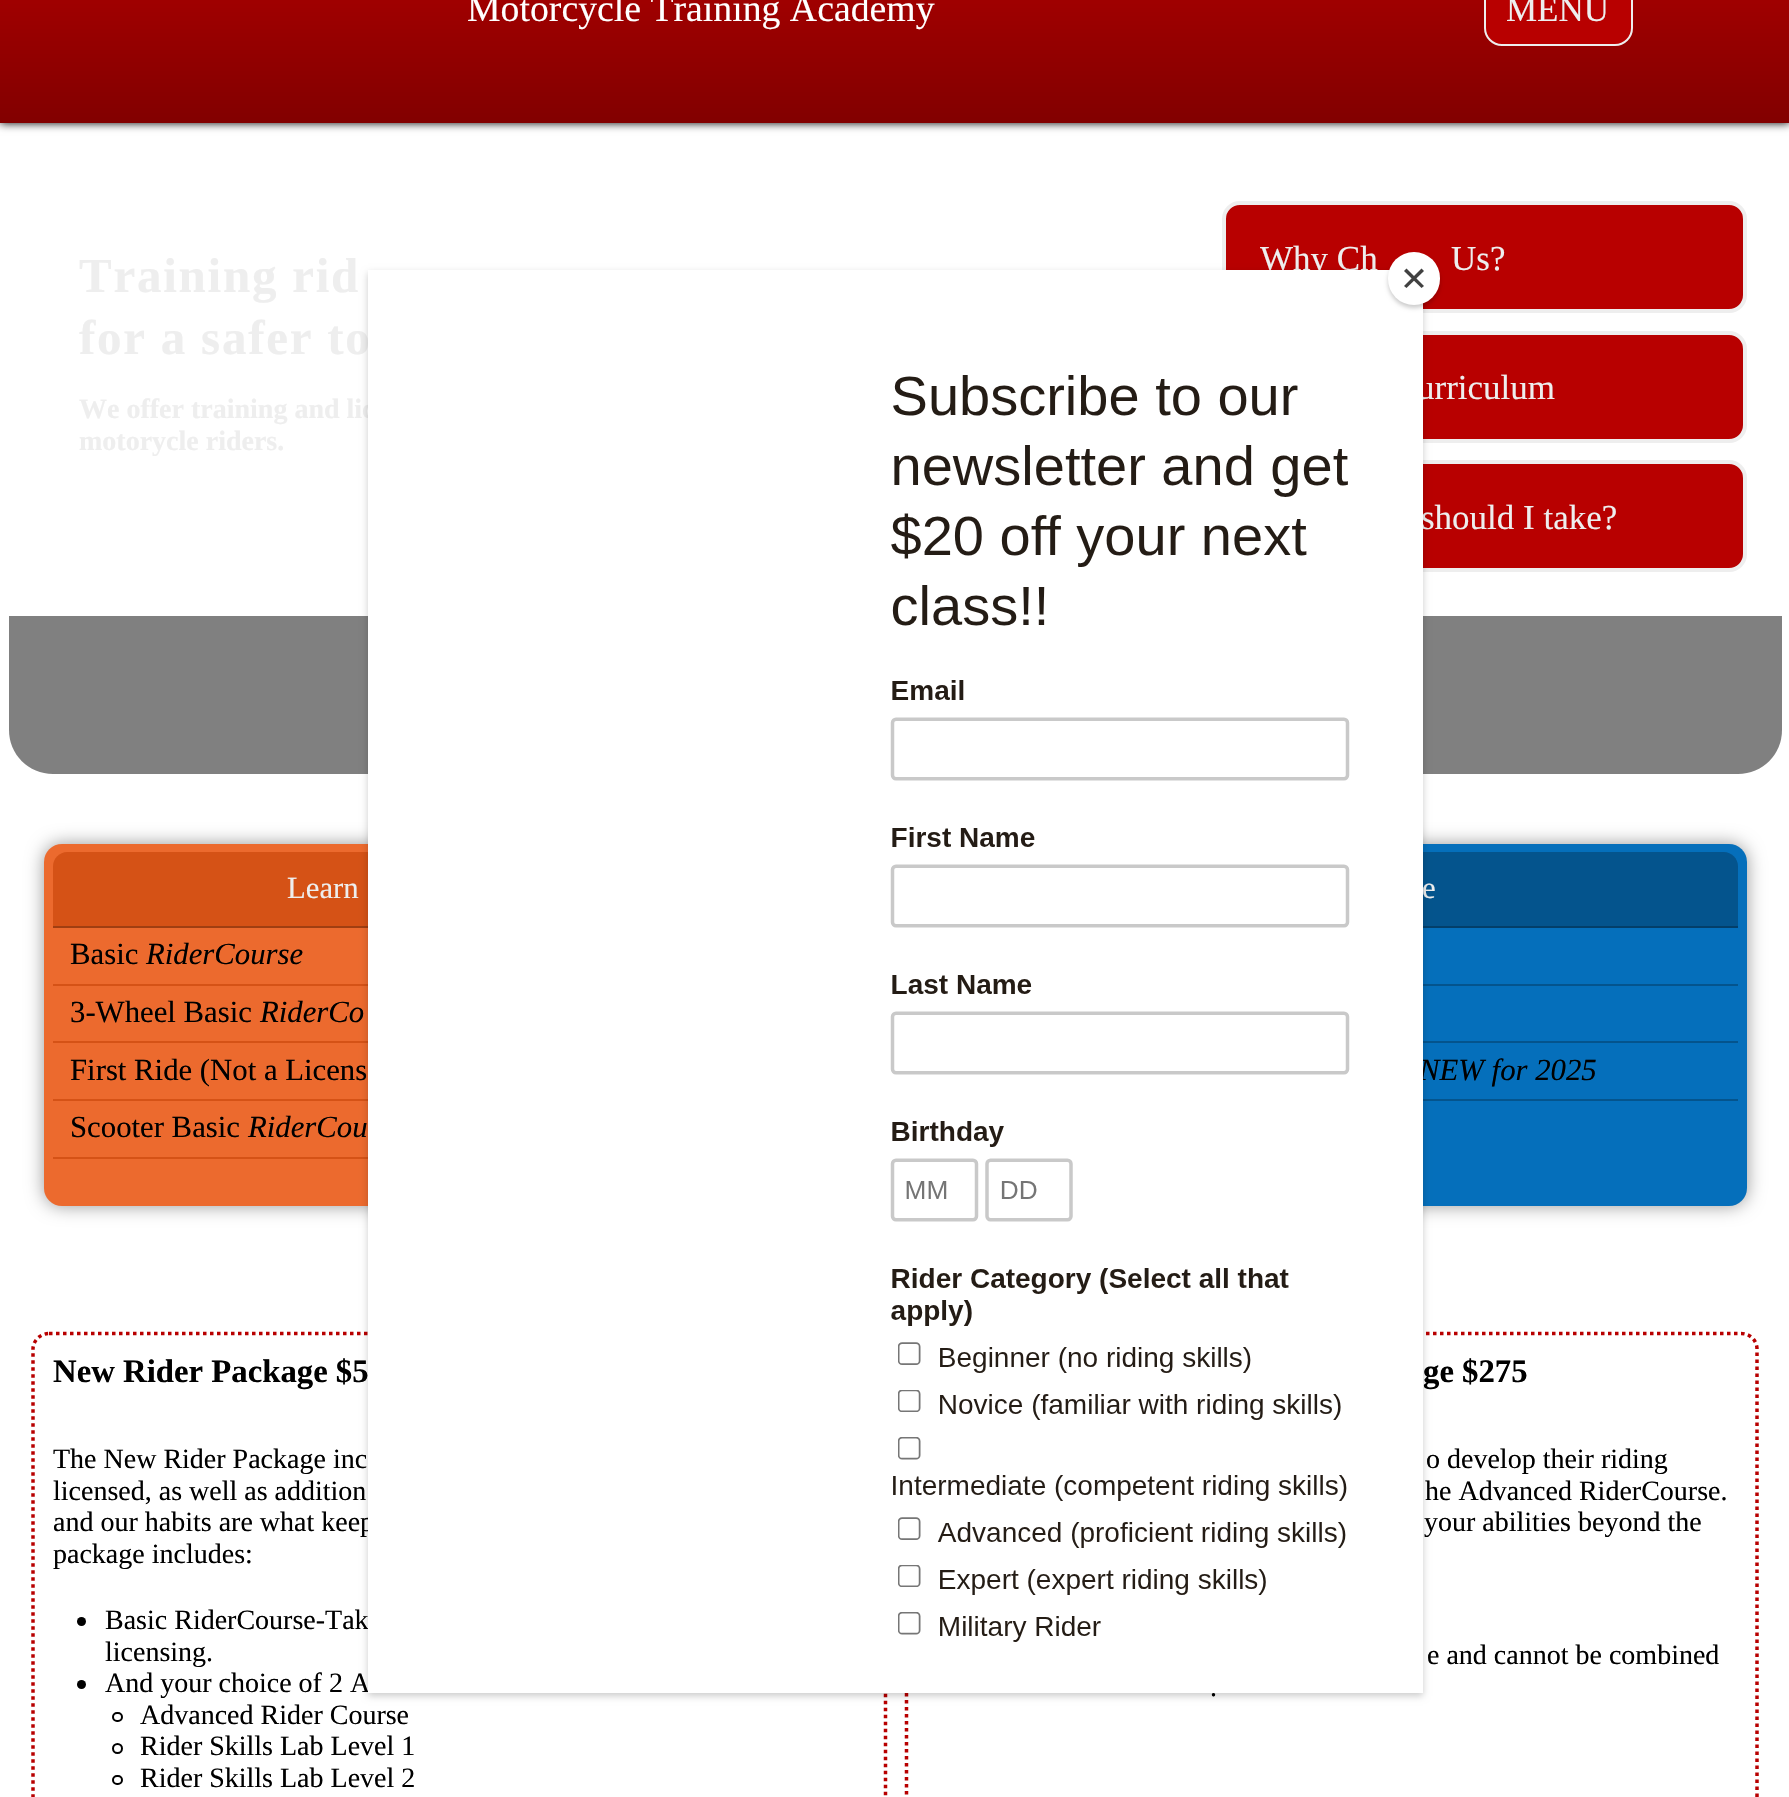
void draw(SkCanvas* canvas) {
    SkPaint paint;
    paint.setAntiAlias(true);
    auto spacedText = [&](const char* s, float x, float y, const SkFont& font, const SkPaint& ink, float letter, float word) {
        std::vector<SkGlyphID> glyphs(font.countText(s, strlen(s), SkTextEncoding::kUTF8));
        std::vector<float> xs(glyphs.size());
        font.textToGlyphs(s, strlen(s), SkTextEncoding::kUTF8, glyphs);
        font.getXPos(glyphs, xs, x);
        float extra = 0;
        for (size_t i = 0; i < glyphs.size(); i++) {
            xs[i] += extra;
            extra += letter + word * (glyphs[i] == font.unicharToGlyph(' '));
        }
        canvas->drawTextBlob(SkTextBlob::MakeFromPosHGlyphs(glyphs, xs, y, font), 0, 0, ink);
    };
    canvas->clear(0xFFFFFFFF);
    paint.setColor(0xFF000000);
    paint.setMaskFilter(SkMaskFilter::MakeBlur(kNormal_SkBlurStyle, 4.5f));
    canvas->drawRect(SkRect::MakeXYWH(0, -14, 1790, 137), paint);
    paint.setMaskFilter(nullptr);
    {
        const SkColor colors[] = {0xFFB80000, 0xFF820000};
        const float stops[] = {0.01f, 1};
        const SkPoint ends[] = {{895, -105}, {895, 123}};
        paint.setShader(SkGradientShader::MakeLinear(ends, colors, stops, 2, SkTileMode::kClamp));
        paint.setAlpha(255);
    }
    canvas->drawRect(SkRect::MakeXYWH(0, 0, 1789, 123), paint);
    SkFont font1(fontMgr->matchFamilyStyle("Liberation Serif", SkFontStyle::Normal()), 37.75f);
    font1.setSubpixel(true);
    paint.setShader(nullptr);
    paint.setColor(0xFFFFFFFF);
    canvas->drawString("Motorcycle Training Academy", 467, 21, font1, paint);
    paint.setColor(0xFFB80000);
    canvas->drawRoundRect(SkRect::MakeXYWH(1485, -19, 147, 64), 17, 17, paint);
    paint.setStyle(SkPaint::kStroke_Style);
    paint.setStrokeWidth(2);
    paint.setColor(0xFFEEEEEE);
    canvas->drawRoundRect(SkRect::MakeXYWH(1485, -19, 147, 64), 17, 17, paint);
    SkFont font2(fontMgr->matchFamilyStyle("Liberation Serif", SkFontStyle::Normal()), 35);
    font2.setSubpixel(true);
    paint.setStyle(SkPaint::kFill_Style);
    canvas->drawString("MENU", 1506, 21, font2, paint);
    SkFont font3(fontMgr->matchFamilyStyle("Liberation Serif", SkFontStyle::Bold()), 49);
    font3.setSubpixel(true);
    spacedText("Training rid", 79, 292, font3, paint, 1.75f, 0);
    spacedText("for a safer to", 79, 354, font3, paint, 1.75f, 0);
    SkFont font4(fontMgr->matchFamilyStyle("Liberation Serif", SkFontStyle::Bold()), 28);
    font4.setSubpixel(true);
    canvas->drawString("We offer training and lic", 79, 418, font4, paint);
    canvas->drawString("motorycle riders.", 79, 450, font4, paint);
    paint.setColor(0xFFB80000);
    canvas->drawRoundRect(SkRect::MakeXYWH(1224, 203, 521, 108), 16, 16, paint);
    paint.setStyle(SkPaint::kStroke_Style);
    paint.setStrokeWidth(4);
    paint.setColor(0xFFEEEEEE);
    canvas->drawRoundRect(SkRect::MakeXYWH(1224, 203, 521, 108), 16, 16, paint);
    paint.setStyle(SkPaint::kFill_Style);
    canvas->drawString("Why Ch", 1260, 270, font2, paint);
    canvas->drawString("Us?", 1451, 270, font2, paint);
    paint.setColor(0xFFB80000);
    canvas->drawRoundRect(SkRect::MakeXYWH(1224, 333, 521, 108), 16, 16, paint);
    paint.setStyle(SkPaint::kStroke_Style);
    paint.setColor(0xFFEEEEEE);
    canvas->drawRoundRect(SkRect::MakeXYWH(1224, 333, 521, 108), 16, 16, paint);
    paint.setStyle(SkPaint::kFill_Style);
    canvas->drawString("urriculum", 1417, 399, font2, paint);
    paint.setColor(0xFFB80000);
    canvas->drawRoundRect(SkRect::MakeXYWH(1224, 462, 521, 108), 16, 16, paint);
    paint.setStyle(SkPaint::kStroke_Style);
    paint.setColor(0xFFEEEEEE);
    canvas->drawRoundRect(SkRect::MakeXYWH(1224, 462, 521, 108), 16, 16, paint);
    paint.setStyle(SkPaint::kFill_Style);
    canvas->drawString("should I take?", 1421, 529, font2, paint);
    paint.setColor(0xFF808080);
    canvas->drawPath(SkPathBuilder().moveTo(9, 616).lineTo(1782, 616).lineTo(1782, 730).cubicTo(1782, 754.5f, 1762.5f, 774, 1738, 774).lineTo(53, 774).cubicTo(28.5f, 774, 9, 754.5f, 9, 730).close().detach(), paint);
    paint.setColor(0xFF999999);
    paint.setMaskFilter(SkMaskFilter::MakeBlur(kNormal_SkBlurStyle, 9));
    canvas->drawRoundRect(SkRect::MakeXYWH(44, 844, 838, 362), 18, 18, paint);
    paint.setMaskFilter(nullptr);
    paint.setColor(0xFFEC6A2E);
    canvas->drawRoundRect(SkRect::MakeXYWH(44, 844, 838, 362), 18, 18, paint);
    paint.setColor(0xFFD55216);
    canvas->drawPath(SkPathBuilder().moveTo(67, 852).lineTo(859, 852).cubicTo(866.5f, 852, 873, 858.5f, 873, 866).lineTo(873, 928).lineTo(53, 928).lineTo(53, 866).cubicTo(53, 858.5f, 59.5f, 852, 67, 852).close().detach(), paint);
    paint.setColor(0xFFA03E11);
    canvas->drawRect(SkRect::MakeXYWH(53, 926, 315, 2), paint);
    SkFont font5(fontMgr->matchFamilyStyle("Liberation Serif", SkFontStyle::Normal()), 30.75f);
    font5.setSubpixel(true);
    paint.setColor(0xFFEEEEEE);
    canvas->drawString("Learn", 287, 898, font5, paint);
    paint.setColor(0xFFD55216);
    canvas->drawRect(SkRect::MakeXYWH(53, 984, 315, 2), paint);
    paint.setColor(0xFF000000);
    canvas->drawString("Basic", 70, 964, font5, paint);
    SkFont font6(fontMgr->matchFamilyStyle("Liberation Serif", SkFontStyle::Italic()), 30.75f);
    font6.setSubpixel(true);
    canvas->drawString("RiderCourse", 146, 964, font6, paint);
    paint.setColor(0xFFD55216);
    canvas->drawRect(SkRect::MakeXYWH(53, 1041, 315, 2), paint);
    paint.setColor(0xFF000000);
    canvas->drawString("3-Wheel Basic", 70, 1022, font5, paint);
    canvas->drawString("RiderCo", 260, 1022, font6, paint);
    paint.setColor(0xFFD55216);
    canvas->drawRect(SkRect::MakeXYWH(53, 1099, 315, 2), paint);
    paint.setColor(0xFF000000);
    canvas->drawString("First Ride (Not a Licens", 70, 1080, font5, paint);
    paint.setColor(0xFFD55216);
    canvas->drawRect(SkRect::MakeXYWH(53, 1157, 315, 2), paint);
    paint.setColor(0xFF000000);
    canvas->drawString("Scooter Basic", 70, 1137, font5, paint);
    canvas->drawString("RiderCou", 248, 1137, font6, paint);
    paint.setColor(0xFF999999);
    paint.setMaskFilter(SkMaskFilter::MakeBlur(kNormal_SkBlurStyle, 9));
    canvas->drawRoundRect(SkRect::MakeXYWH(908, 844, 839, 362), 18, 18, paint);
    paint.setMaskFilter(nullptr);
    paint.setColor(0xFF056FBB);
    canvas->drawRoundRect(SkRect::MakeXYWH(908, 844, 839, 362), 18, 18, paint);
    paint.setColor(0xFF04548D);
    canvas->drawPath(SkPathBuilder().moveTo(931, 852).lineTo(1724, 852).cubicTo(1731.5f, 852, 1738, 858.5f, 1738, 866).lineTo(1738, 928).lineTo(917, 928).lineTo(917, 866).cubicTo(917, 858.5f, 923.5f, 852, 931, 852).close().detach(), paint);
    paint.setColor(0xFF033F6A);
    canvas->drawRect(SkRect::MakeXYWH(1423, 926, 315, 2), paint);
    paint.setColor(0xFFEEEEEE);
    canvas->drawString("e", 1422, 898, font5, paint);
    paint.setColor(0xFF04548D);
    canvas->drawRect(SkRect::MakeXYWH(1423, 984, 315, 2), paint);
    canvas->drawRect(SkRect::MakeXYWH(1423, 1041, 315, 2), paint);
    canvas->drawRect(SkRect::MakeXYWH(1423, 1099, 315, 2), paint);
    paint.setColor(0xFF000000);
    canvas->drawString("NEW for 2025", 1419, 1080, font6, paint);
    paint.setStyle(SkPaint::kStroke_Style);
    paint.setStrokeWidth(3.5f);
    paint.setColor(0xFFB80000);
    paint.setPathEffect(SkDashPathEffect::Make({{3.5f, 3.5f}}, 0));
    canvas->drawPath(SkPathBuilder().moveTo(49, 1333.5f).lineTo(870, 1333.5f).cubicTo(878.5f, 1333.5f, 885.5f, 1340.5f, 885.5f, 1349).lineTo(885.5f, 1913).cubicTo(885.5f, 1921.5f, 878.5f, 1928.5f, 870, 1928.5f).lineTo(49, 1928.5f).cubicTo(40.5f, 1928.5f, 33, 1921.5f, 33, 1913).lineTo(33, 1349).cubicTo(33, 1340.5f, 40.5f, 1333.5f, 49, 1333.5f).close().detach(), paint);
    paint.setPathEffect(nullptr);
    SkFont font7(fontMgr->matchFamilyStyle("Liberation Serif", SkFontStyle::Bold()), 32.75f);
    font7.setSubpixel(true);
    paint.setStyle(SkPaint::kFill_Style);
    paint.setColor(0xFF000000);
    canvas->drawString("New Rider Package $5", 53, 1382, font7, paint);
    SkFont font8(fontMgr->matchFamilyStyle("Liberation Serif", SkFontStyle::Normal()), 28);
    font8.setSubpixel(true);
    canvas->drawString("The New Rider Package inc", 53, 1468, font8, paint);
    canvas->drawString("licensed, as well as addition", 53, 1500, font8, paint);
    canvas->drawString("and our habits are what keep", 53, 1531, font8, paint);
    canvas->drawString("package includes:", 53, 1563, font8, paint);
    canvas->drawCircle(81.5f, 1621.5f, 4.5f, paint);
    canvas->drawString("Basic RiderCourse-Tak", 105, 1629, font8, paint);
    canvas->drawString("licensing.", 105, 1661, font8, paint);
    canvas->drawCircle(81.5f, 1684.5f, 4.5f, paint);
    canvas->drawString("And your choice of 2 A", 105, 1692, font8, paint);
    paint.setStyle(SkPaint::kStroke_Style);
    paint.setStrokeWidth(2);
    canvas->drawRoundRect(SkRect::MakeXYWH(113, 1713, 9, 8), 4, 4, paint);
    paint.setStyle(SkPaint::kFill_Style);
    canvas->drawString("Advanced Rider Course", 140, 1724, font8, paint);
    paint.setStyle(SkPaint::kStroke_Style);
    canvas->drawCircle(117.5f, 1748.5f, 4.5f, paint);
    paint.setStyle(SkPaint::kFill_Style);
    canvas->drawString("Rider Skills Lab Level 1", 140, 1755, font8, paint);
    paint.setStyle(SkPaint::kStroke_Style);
    canvas->drawRoundRect(SkRect::MakeXYWH(113, 1776, 9, 8), 4, 4, paint);
    paint.setStyle(SkPaint::kFill_Style);
    canvas->drawString("Rider Skills Lab Level 2", 140, 1787, font8, paint);
    paint.setStyle(SkPaint::kStroke_Style);
    paint.setStrokeWidth(3.5f);
    paint.setColor(0xFFB80000);
    paint.setPathEffect(SkDashPathEffect::Make({{3.5f, 3.5f}}, 0));
    canvas->drawPath(SkPathBuilder().moveTo(922, 1333.5f).lineTo(1741, 1333.5f).cubicTo(1750, 1333.5f, 1757, 1340.5f, 1757, 1349).lineTo(1757, 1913).cubicTo(1757, 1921.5f, 1750, 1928.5f, 1741, 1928.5f).lineTo(922, 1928.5f).cubicTo(913.5f, 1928.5f, 906.5f, 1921.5f, 906.5f, 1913).lineTo(906.5f, 1349).cubicTo(906.5f, 1340.5f, 913.5f, 1333.5f, 922, 1333.5f).close().detach(), paint);
    paint.setPathEffect(nullptr);
    paint.setStyle(SkPaint::kFill_Style);
    paint.setColor(0xFF000000);
    canvas->drawString("ge $275", 1423, 1382, font7, paint);
    canvas->drawString("o develop their riding", 1426, 1468, font8, paint);
    canvas->drawString("he Advanced RiderCourse.", 1425, 1500, font8, paint);
    canvas->drawString("your abilities beyond the", 1424, 1531, font8, paint);
    canvas->drawString("e and cannot be combined", 1427, 1664, font8, paint);
    canvas->drawString(".", 1210, 1696, font8, paint);
    paint.setColor(0x33000000);
    paint.setMaskFilter(SkMaskFilter::MakeBlur(kNormal_SkBlurStyle, 3.5f));
    canvas->drawRect(SkRect::MakeXYWH(368, 273, 1055, 1423), paint);
    paint.setMaskFilter(nullptr);
    canvas->drawImageRect(SkImages::DeferredFromEncodedData(SkData::MakeFromFileName("img1.png")), SkRect::MakeXYWH(368, 270, 1055, 1423), SkSamplingOptions());
    paint.setMaskFilter(SkMaskFilter::MakeBlur(kNormal_SkBlurStyle, 2));
    canvas->drawRoundRect(SkRect::MakeXYWH(1388, 256, 52, 52), 26, 26, paint);
    paint.setMaskFilter(nullptr);
    paint.setColor(0xFFFFFFFF);
    canvas->drawRoundRect(SkRect::MakeXYWH(1388, 252, 52, 53), 26, 26, paint);
    paint.setColor(0xFF414141);
    canvas->drawPath(SkPathBuilder().moveTo(1421.5f, 268.5f).lineTo(1424, 271).lineTo(1406.5f, 288).lineTo(1404, 286).close().detach(), paint);
    canvas->drawPath(SkPathBuilder().moveTo(1404, 271).lineTo(1406.5f, 268.5f).lineTo(1424, 286).lineTo(1421.5f, 288).close().detach(), paint);
}
